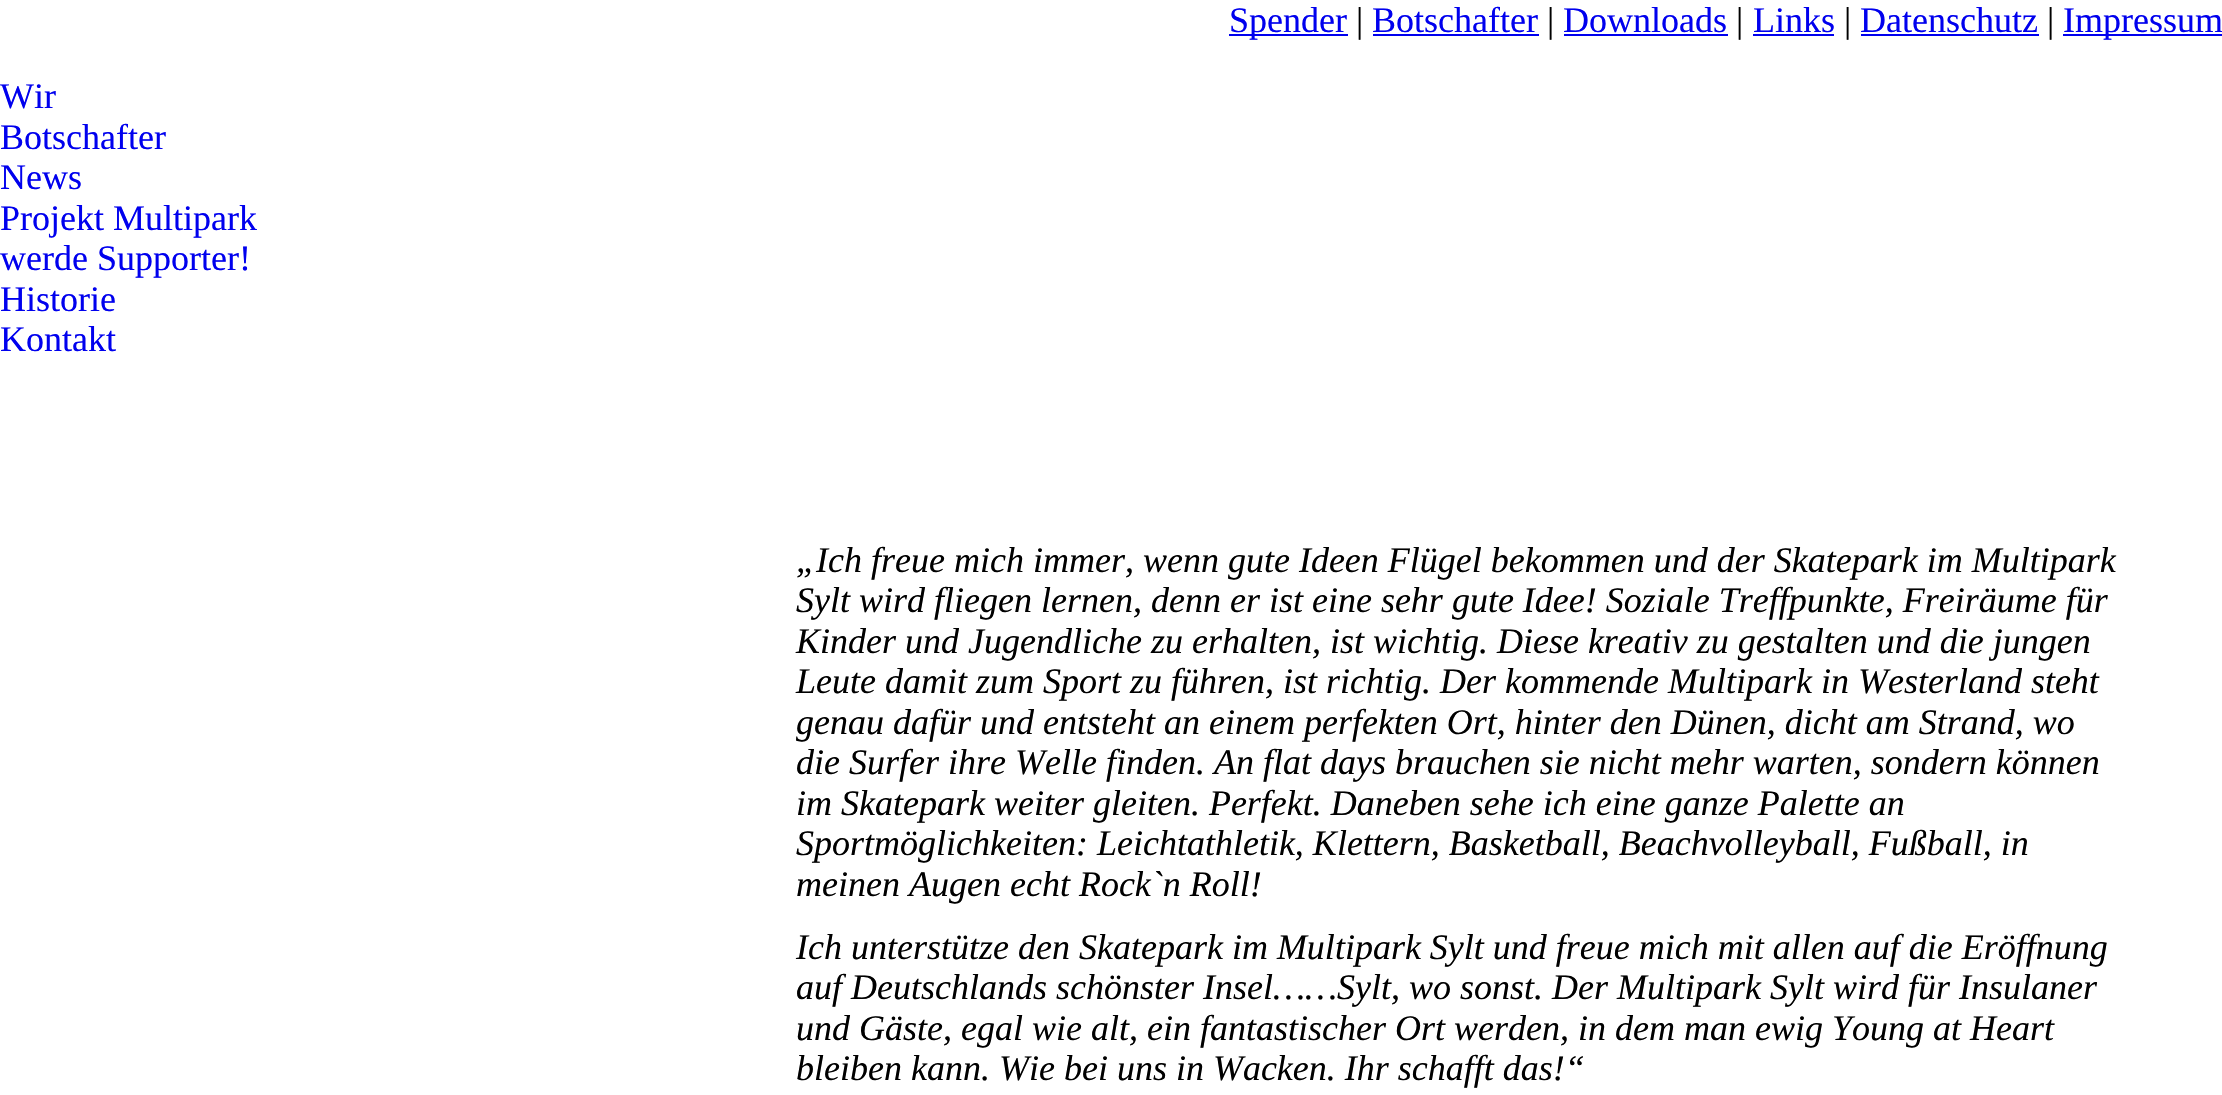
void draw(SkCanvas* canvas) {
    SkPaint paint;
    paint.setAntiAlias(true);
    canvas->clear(0xFFFFFFFF);
    paint.setColor(0xFF0000EE);
    canvas->drawRect(SkRect::MakeXYWH(1229, 34, 119, 2), paint);
    SkFont font1(fontMgr->matchFamilyStyle("Liberation Serif", SkFontStyle::Normal()), 36);
    font1.setSubpixel(true);
    canvas->drawString("Spender", 1229, 32, font1, paint);
    paint.setColor(0xFF000000);
    canvas->drawString("|", 1356, 32, font1, paint);
    paint.setColor(0xFF0000EE);
    canvas->drawString("Botschafter", 1372, 32, font1, paint);
    canvas->drawRect(SkRect::MakeXYWH(1373, 34, 166, 2), paint);
    paint.setColor(0xFF000000);
    canvas->drawString("|", 1547, 32, font1, paint);
    paint.setColor(0xFF0000EE);
    canvas->drawString("Downloads", 1563, 32, font1, paint);
    canvas->drawRect(SkRect::MakeXYWH(1564, 34, 164, 2), paint);
    paint.setColor(0xFF000000);
    canvas->drawString("|", 1736, 32, font1, paint);
    paint.setColor(0xFF0000EE);
    canvas->drawString("Links", 1753, 32, font1, paint);
    canvas->drawRect(SkRect::MakeXYWH(1753, 34, 81, 2), paint);
    paint.setColor(0xFF000000);
    canvas->drawString("|", 1844, 32, font1, paint);
    paint.setColor(0xFF0000EE);
    canvas->drawString("Datenschutz", 1860, 32, font1, paint);
    canvas->drawRect(SkRect::MakeXYWH(1861, 34, 178, 2), paint);
    paint.setColor(0xFF000000);
    canvas->drawString("|", 2047, 32, font1, paint);
    paint.setColor(0xFF0000EE);
    canvas->drawRect(SkRect::MakeXYWH(2063, 34, 159, 2), paint);
    canvas->drawString("Impressum", 2063, 32, font1, paint);
    canvas->drawString("Wir", 0, 108, font1, paint);
    canvas->drawString("Botschafter", 0, 149, font1, paint);
    canvas->drawString("News", 0, 189, font1, paint);
    canvas->drawString("Projekt Multipark", 0, 230, font1, paint);
    canvas->drawString("werde Supporter!", 0, 270, font1, paint);
    canvas->drawString("Historie", 0, 311, font1, paint);
    canvas->drawString("Kontakt", 0, 351, font1, paint);
    SkFont font2(fontMgr->matchFamilyStyle("Liberation Serif", SkFontStyle::Italic()), 36);
    font2.setSubpixel(true);
    paint.setColor(0xFF000000);
    canvas->drawString("„Ich freue mich immer, wenn gute Ideen Flügel bekommen und der Skatepark im Multipark", 796, 572, font2, paint);
    canvas->drawString("Sylt wird fliegen lernen, denn er ist eine sehr gute Idee! Soziale Treffpunkte, Freiräume für", 796, 612, font2, paint);
    canvas->drawString("Kinder und Jugendliche zu erhalten, ist wichtig. Diese kreativ zu gestalten und die jungen", 796, 653, font2, paint);
    canvas->drawString("Leute damit zum Sport zu führen, ist richtig. Der kommende Multipark in Westerland steht", 796, 693, font2, paint);
    canvas->drawString("genau dafür und entsteht an einem perfekten Ort, hinter den Dünen, dicht am Strand, wo", 796, 734, font2, paint);
    canvas->drawString("die Surfer ihre Welle finden. An flat days brauchen sie nicht mehr warten, sondern können", 796, 774, font2, paint);
    canvas->drawString("im Skatepark weiter gleiten. Perfekt. Daneben sehe ich eine ganze Palette an", 796, 815, font2, paint);
    canvas->drawString("Sportmöglichkeiten: Leichtathletik, Klettern, Basketball, Beachvolleyball, Fußball, in", 796, 855, font2, paint);
    canvas->drawString("meinen Augen echt Rock`n Roll!", 796, 896, font2, paint);
    canvas->drawString("Ich unterstütze den Skatepark im Multipark Sylt und freue mich mit allen auf die Eröffnung", 796, 959, font2, paint);
    canvas->drawString("auf Deutschlands schönster Insel……Sylt, wo sonst. Der Multipark Sylt wird für Insulaner", 796, 999, font2, paint);
    canvas->drawString("und Gäste, egal wie alt, ein fantastischer Ort werden, in dem man ewig Young at Heart", 796, 1040, font2, paint);
    canvas->drawString("bleiben kann. Wie bei uns in Wacken. Ihr schafft das!“", 796, 1080, font2, paint);
}
